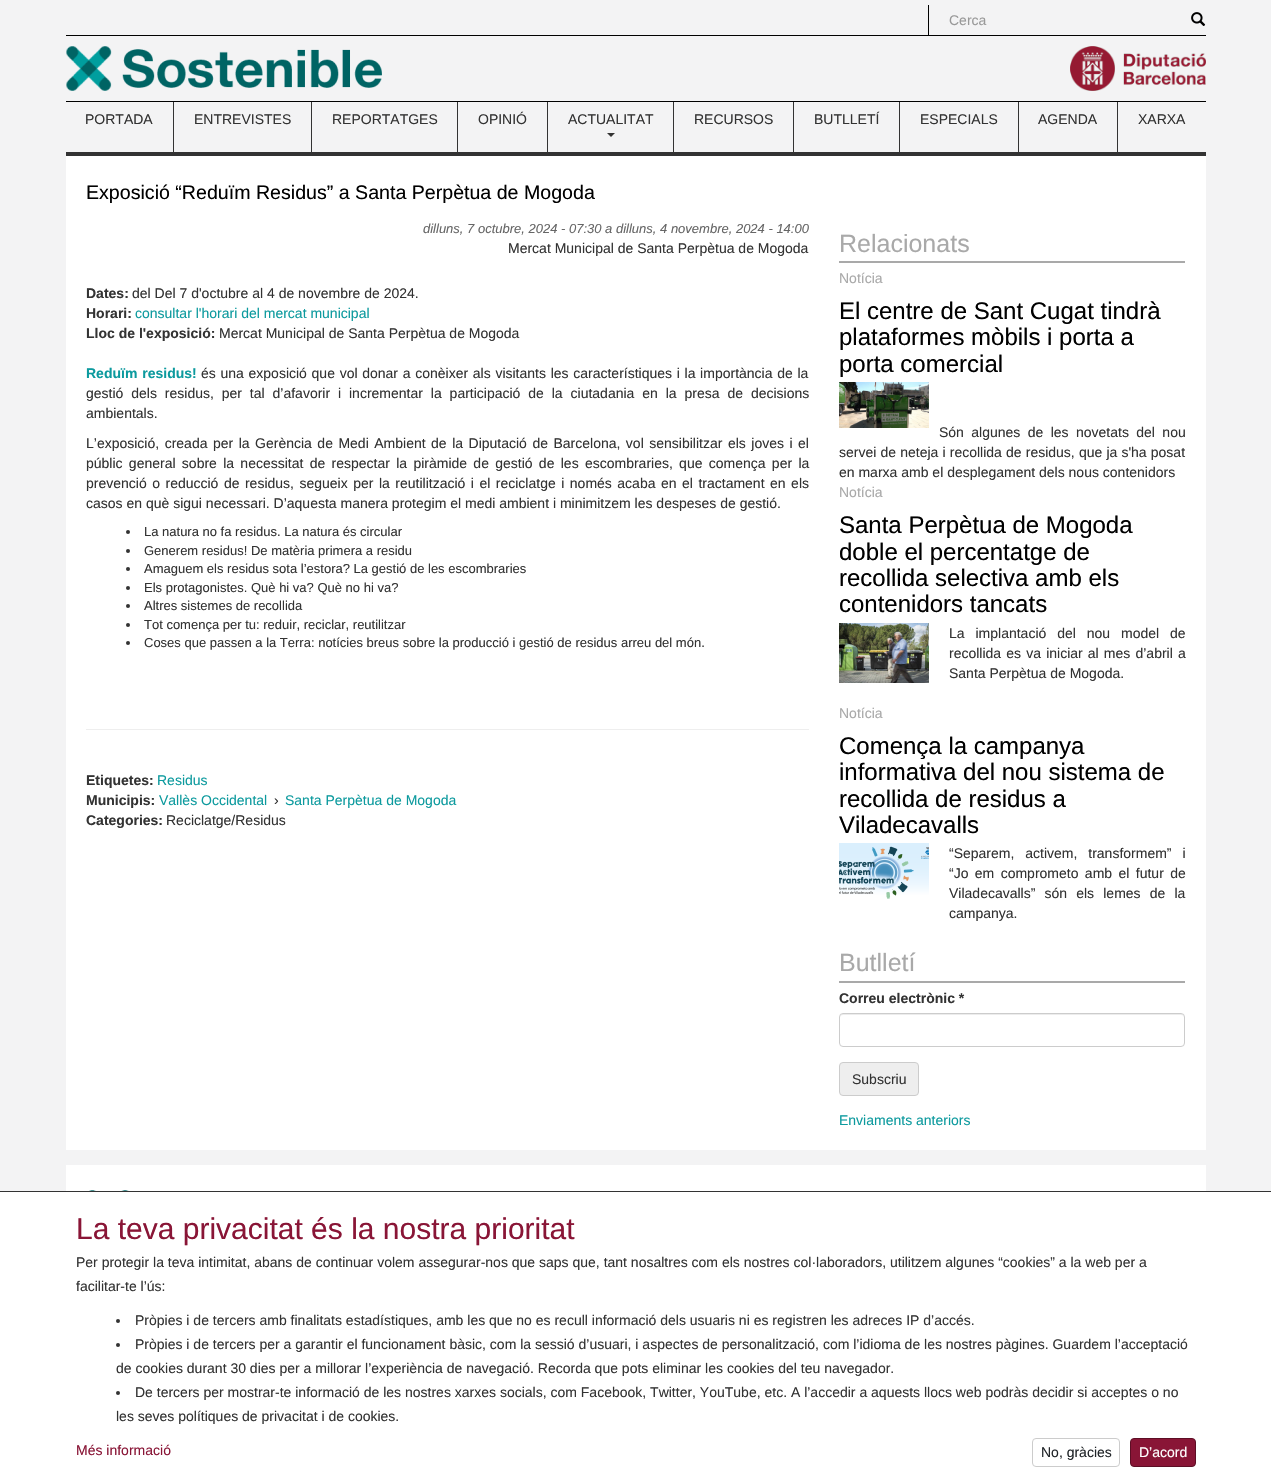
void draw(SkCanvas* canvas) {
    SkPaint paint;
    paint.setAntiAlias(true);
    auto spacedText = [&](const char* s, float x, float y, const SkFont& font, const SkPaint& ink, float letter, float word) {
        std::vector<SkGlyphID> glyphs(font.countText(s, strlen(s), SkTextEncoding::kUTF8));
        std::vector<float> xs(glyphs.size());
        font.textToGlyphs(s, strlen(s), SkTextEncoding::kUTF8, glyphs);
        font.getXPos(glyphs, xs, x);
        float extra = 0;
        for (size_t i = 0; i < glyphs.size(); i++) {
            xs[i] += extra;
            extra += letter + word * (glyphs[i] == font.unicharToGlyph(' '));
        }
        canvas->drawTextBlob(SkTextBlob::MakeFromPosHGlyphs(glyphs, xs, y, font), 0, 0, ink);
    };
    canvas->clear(0xFFF3F3F4);
    paint.setColor(0xFF000000);
    canvas->drawRect(SkRect::MakeXYWH(928, 5, 1, 30), paint);
    SkFont font1(fontMgr->matchFamilyStyle("Liberation Sans", SkFontStyle::Normal()), 14);
    font1.setSubpixel(true);
    paint.setColor(0xFF999999);
    canvas->drawString("Cerca", 949, 25, font1, paint);
    canvas->drawImageRect(SkImages::DeferredFromEncodedData(SkData::MakeFromFileName("img1.png")), SkRect::MakeXYWH(1191, 12, 15, 14), SkSamplingOptions());
    paint.setColor(0xFF000000);
    canvas->drawRect(SkRect::MakeXYWH(66, 35, 1140, 1), paint);
    canvas->drawImageRect(SkImages::DeferredFromEncodedData(SkData::MakeFromFileName("img2.png")), SkRect::MakeXYWH(66, 46, 316, 45), SkSamplingOptions());
    canvas->drawImageRect(SkImages::DeferredFromEncodedData(SkData::MakeFromFileName("img3.png")), SkRect::MakeXYWH(1070, 46, 136, 45), SkSamplingOptions());
    canvas->drawRect(SkRect::MakeXYWH(66, 101, 1140, 1), paint);
    paint.setColor(0xFF333333);
    canvas->drawRect(SkRect::MakeXYWH(66, 152, 1140, 4), paint);
    canvas->drawRect(SkRect::MakeXYWH(173, 102, 1, 50), paint);
    canvas->drawString("PORTADA", 85, 124, font1, paint);
    canvas->drawRect(SkRect::MakeXYWH(311, 102, 1, 50), paint);
    canvas->drawString("ENTREVISTES", 194, 124, font1, paint);
    canvas->drawRect(SkRect::MakeXYWH(457, 102, 1, 50), paint);
    canvas->drawString("REPORTATGES", 332, 124, font1, paint);
    canvas->drawRect(SkRect::MakeXYWH(547, 102, 1, 50), paint);
    canvas->drawString("OPINIÓ", 478, 124, font1, paint);
    canvas->drawRect(SkRect::MakeXYWH(673, 102, 1, 50), paint);
    canvas->drawString("ACTUALITAT", 568, 124, font1, paint);
    canvas->drawPath(SkPathBuilder().moveTo(607, 133).lineTo(615, 133).lineTo(611, 137).close().detach(), paint);
    canvas->drawRect(SkRect::MakeXYWH(793, 102, 1, 50), paint);
    canvas->drawString("RECURSOS", 694, 124, font1, paint);
    canvas->drawRect(SkRect::MakeXYWH(899, 102, 1, 50), paint);
    canvas->drawString("BUTLLETÍ", 814, 124, font1, paint);
    canvas->drawRect(SkRect::MakeXYWH(1018, 102, 1, 50), paint);
    canvas->drawString("ESPECIALS", 920, 124, font1, paint);
    canvas->drawRect(SkRect::MakeXYWH(1117, 102, 1, 50), paint);
    canvas->drawString("AGENDA", 1038, 124, font1, paint);
    canvas->drawString("XARXA", 1138, 124, font1, paint);
    paint.setColor(0xFFFFFFFF);
    canvas->drawRect(SkRect::MakeXYWH(66, 156, 1140, 994), paint);
    SkFont font2(fontMgr->matchFamilyStyle("Liberation Sans", SkFontStyle::Normal()), 19.6f);
    font2.setSubpixel(true);
    paint.setColor(0xFF000000);
    canvas->drawString("Exposició “Reduïm Residus” a Santa Perpètua de Mogoda", 86, 199, font2, paint);
    SkFont font3(fontMgr->matchFamilyStyle("Liberation Sans", SkFontStyle::Italic()), 13);
    font3.setSubpixel(true);
    paint.setColor(0xFF666666);
    canvas->drawString("dilluns, 7 octubre, 2024 - 07:30 a dilluns, 4 novembre, 2024 - 14:00", 423, 233, font3, paint);
    paint.setColor(0xFF333333);
    canvas->drawString("Mercat Municipal de Santa Perpètua de Mogoda", 508, 253, font1, paint);
    SkFont font4(fontMgr->matchFamilyStyle("Liberation Sans", SkFontStyle::Bold()), 14);
    font4.setSubpixel(true);
    canvas->drawString("Dates:", 86, 298, font4, paint);
    canvas->drawString("del Del 7 d'octubre al 4 de novembre de 2024.", 132, 298, font1, paint);
    canvas->drawString("Horari:", 86, 318, font4, paint);
    paint.setColor(0xFF0C9A9E);
    canvas->drawString("consultar l'horari del mercat municipal", 135, 318, font1, paint);
    paint.setColor(0xFF333333);
    canvas->drawString("Lloc de l'exposició:", 86, 338, font4, paint);
    canvas->drawString("Mercat Municipal de Santa Perpètua de Mogoda", 219, 338, font1, paint);
    paint.setColor(0xFF0C9A9E);
    spacedText("Reduïm residus!", 86, 378, font4, paint, 0, 1);
    paint.setColor(0xFF333333);
    spacedText("és una exposició que vol donar a conèixer als visitants les característiques i la importància de la", 201, 378, font1, paint, 0, 0.8f);
    spacedText("gestió dels residus, per tal d’afavorir i incrementar la participació de la ciutadania en la presa de decisions", 86, 398, font1, paint, 0, 4);
    canvas->drawString("ambientals.", 86, 418, font1, paint);
    spacedText("L’exposició, creada per la Gerència de Medi Ambient de la Diputació de Barcelona, vol sensibilitzar els joves i el", 86, 448, font1, paint, 0, 1.6f);
    spacedText("públic general sobre la necessitat de respectar la piràmide de gestió de les escombraries, que comença per la", 86, 468, font1, paint, 0, 2.4f);
    spacedText("prevenció o reducció de residus, segueix per la reutilització i el reciclatge i només acaba en el tractament en els", 86, 488, font1, paint, 0, 1.6f);
    canvas->drawString("casos en què sigui necessari. D’aquesta manera protegim el medi ambient i minimitzem les despeses de gestió.", 86, 508, font1, paint);
    canvas->drawCircle(128, 532, 2, paint);
    SkFont font5(fontMgr->matchFamilyStyle("Liberation Sans", SkFontStyle::Normal()), 13);
    font5.setSubpixel(true);
    canvas->drawString("La natura no fa residus. La natura és circular", 144, 536, font5, paint);
    canvas->drawCircle(128, 551, 2, paint);
    canvas->drawString("Generem residus! De matèria primera a residu", 144, 555, font5, paint);
    canvas->drawCircle(128, 569, 2, paint);
    canvas->drawString("Amaguem els residus sota l’estora? La gestió de les escombraries", 144, 573, font5, paint);
    canvas->drawCircle(128, 588, 2, paint);
    canvas->drawString("Els protagonistes. Què hi va? Què no hi va?", 144, 592, font5, paint);
    canvas->drawCircle(128, 606, 2, paint);
    canvas->drawString("Altres sistemes de recollida", 144, 610, font5, paint);
    canvas->drawCircle(128, 625, 2, paint);
    canvas->drawString("Tot comença per tu: reduir, reciclar, reutilitzar", 144, 629, font5, paint);
    canvas->drawCircle(128, 643, 2, paint);
    canvas->drawString("Coses que passen a la Terra: notícies breus sobre la producció i gestió de residus arreu del món.", 144, 647, font5, paint);
    paint.setColor(0xFFEEEEEE);
    canvas->drawRect(SkRect::MakeXYWH(86, 729, 723, 1), paint);
    paint.setColor(0xFF333333);
    canvas->drawString("Etiquetes:", 86, 785, font4, paint);
    paint.setColor(0xFF0C9A9E);
    canvas->drawString("Residus", 157, 785, font1, paint);
    paint.setColor(0xFF333333);
    canvas->drawString("Municipis:", 86, 805, font4, paint);
    paint.setColor(0xFF0C9A9E);
    canvas->drawString("Vallès Occidental", 159, 805, font1, paint);
    paint.setColor(0xFF333333);
    canvas->drawString("›", 274, 805, font1, paint);
    paint.setColor(0xFF0C9A9E);
    canvas->drawString("Santa Perpètua de Mogoda", 285, 805, font1, paint);
    paint.setColor(0xFF333333);
    canvas->drawString("Categories:", 86, 825, font4, paint);
    canvas->drawString("Reciclatge/Residus", 166, 825, font1, paint);
    paint.setColor(0xFFA9A9A9);
    canvas->drawRect(SkRect::MakeXYWH(839, 261, 346, 2), paint);
    SkFont font6(fontMgr->matchFamilyStyle("Liberation Sans", SkFontStyle::Normal()), 25);
    font6.setSubpixel(true);
    canvas->drawString("Relacionats", 839, 252, font6, paint);
    canvas->drawString("Notícia", 839, 283, font1, paint);
    SkFont font7(fontMgr->matchFamilyStyle("Liberation Sans", SkFontStyle::Normal()), 24);
    font7.setSubpixel(true);
    paint.setColor(0xFF000000);
    canvas->drawString("El centre de Sant Cugat tindrà", 839, 319, font7, paint);
    canvas->drawString("plataformes mòbils i porta a", 839, 345, font7, paint);
    canvas->drawString("porta comercial", 839, 372, font7, paint);
    canvas->drawImageRect(SkImages::DeferredFromEncodedData(SkData::MakeFromFileName("img4.png")), SkRect::MakeXYWH(839, 382, 90, 46), SkSamplingOptions());
    paint.setColor(0xFF333333);
    spacedText("Són algunes de les novetats del nou", 939, 437, font1, paint, 0, 3.5f);
    spacedText("servei de neteja i recollida de residus, que ja s'ha posat", 839, 457, font1, paint, 0, 0.25f);
    canvas->drawString("en marxa amb el desplegament dels nous contenidors", 839, 477, font1, paint);
    paint.setColor(0xFFA9A9A9);
    canvas->drawString("Notícia", 839, 497, font1, paint);
    paint.setColor(0xFF000000);
    canvas->drawString("Santa Perpètua de Mogoda", 839, 533, font7, paint);
    canvas->drawString("doble el percentatge de", 839, 560, font7, paint);
    canvas->drawString("recollida selectiva amb els", 839, 586, font7, paint);
    canvas->drawString("contenidors tancats", 839, 612, font7, paint);
    canvas->drawImageRect(SkImages::DeferredFromEncodedData(SkData::MakeFromFileName("img5.png")), SkRect::MakeXYWH(839, 623, 90, 60), SkSamplingOptions());
    paint.setColor(0xFF333333);
    spacedText("La implantació del nou model de", 949, 638, font1, paint, 0, 7);
    spacedText("recollida es va iniciar al mes d’abril a", 949, 658, font1, paint, 0, 1.25f);
    canvas->drawString("Santa Perpètua de Mogoda.", 949, 678, font1, paint);
    paint.setColor(0xFFA9A9A9);
    canvas->drawString("Notícia", 839, 718, font1, paint);
    paint.setColor(0xFF000000);
    canvas->drawString("Comença la campanya", 839, 754, font7, paint);
    canvas->drawString("informativa del nou sistema de", 839, 780, font7, paint);
    canvas->drawString("recollida de residus a", 839, 807, font7, paint);
    canvas->drawString("Viladecavalls", 839, 833, font7, paint);
    canvas->drawImageRect(SkImages::DeferredFromEncodedData(SkData::MakeFromFileName("img6.png")), SkRect::MakeXYWH(839, 843, 90, 56), SkSamplingOptions());
    paint.setColor(0xFF333333);
    spacedText("“Separem, activem, transformem” i", 949, 858, font1, paint, 0, 7);
    spacedText("“Jo em comprometo amb el futur de", 949, 878, font1, paint, 0, 2.5f);
    spacedText("Viladecavalls” són els lemes de la", 949, 898, font1, paint, 0, 5.25f);
    canvas->drawString("campanya.", 949, 918, font1, paint);
    paint.setColor(0xFFA9A9A9);
    canvas->drawRect(SkRect::MakeXYWH(839, 981, 346, 2), paint);
    canvas->drawString("Butlletí", 839, 971, font6, paint);
    paint.setColor(0xFF333333);
    canvas->drawString("Correu electrònic *", 839, 1003, font4, paint);
    paint.setColor(0xFFECECEC);
    canvas->drawPath(SkPathBuilder().moveTo(843, 1015).lineTo(1181, 1015).cubicTo(1183, 1015, 1184, 1016, 1184, 1018).cubicTo(1184, 1016, 1183, 1014, 1181, 1014).lineTo(843, 1014).cubicTo(841, 1014, 840, 1016, 840, 1018).cubicTo(840, 1016, 841, 1015, 843, 1015).close().detach(), paint);
    paint.setStyle(SkPaint::kStroke_Style);
    paint.setStrokeWidth(1);
    paint.setColor(0xFFCCCCCC);
    canvas->drawRoundRect(SkRect::MakeXYWH(839.5f, 1013.5f, 345, 33), 3.5f, 3.5f, paint);
    paint.setStyle(SkPaint::kFill_Style);
    paint.setColor(0xFFEEEEEE);
    canvas->drawRoundRect(SkRect::MakeXYWH(839.5f, 1062.5f, 79, 33), 3.5f, 3.5f, paint);
    paint.setStyle(SkPaint::kStroke_Style);
    paint.setColor(0xFFCCCCCC);
    canvas->drawRoundRect(SkRect::MakeXYWH(839.5f, 1062.5f, 79, 33), 3.5f, 3.5f, paint);
    paint.setStyle(SkPaint::kFill_Style);
    paint.setColor(0xFF333333);
    canvas->drawString("Subscriu", 852, 1084, font1, paint);
    paint.setColor(0xFF0C9A9E);
    canvas->drawString("Enviaments anteriors", 839, 1125, font1, paint);
    paint.setColor(0xFFFFFFFF);
    canvas->drawRect(SkRect::MakeXYWH(66, 1165, 1140, 26), paint);
    canvas->drawImageRect(SkImages::DeferredFromEncodedData(SkData::MakeFromFileName("img7.png")), SkRect::MakeXYWH(89, 1190, 40, 1), SkSamplingOptions());
    canvas->drawRect(SkRect::MakeXYWH(0, 1192, 1271, 285), paint);
    paint.setColor(0xFF333333);
    canvas->drawRect(SkRect::MakeXYWH(0, 1191, 1271, 1), paint);
    SkFont font8(fontMgr->matchFamilyStyle("Liberation Sans", SkFontStyle::Normal()), 30);
    font8.setSubpixel(true);
    paint.setColor(0xFF891536);
    canvas->drawString("La teva privacitat és la nostra prioritat", 76, 1239, font8, paint);
    paint.setColor(0xFF333333);
    canvas->drawString("Per protegir la teva intimitat, abans de continuar volem assegurar-nos que saps que, tant nosaltres com els nostres col·laboradors, utilitzem algunes “cookies” a la web per a", 76, 1267, font1, paint);
    canvas->drawString("facilitar-te l’ús:", 76, 1291, font1, paint);
    canvas->drawCircle(118, 1321, 2, paint);
    canvas->drawString("Pròpies i de tercers amb finalitats estadístiques, amb les que no es recull informació dels usuaris ni es registren les adreces IP d’accés.", 135, 1325, font1, paint);
    canvas->drawCircle(118, 1345, 2, paint);
    canvas->drawString("Pròpies i de tercers per a garantir el funcionament bàsic, com la sessió d’usuari, i aspectes de personalització, com l’idioma de les nostres pàgines. Guardem l’acceptació", 135, 1349, font1, paint);
    canvas->drawString("de cookies durant 30 dies per a millorar l’experiència de navegació. Recorda que pots eliminar les cookies del teu navegador.", 116, 1373, font1, paint);
    canvas->drawCircle(118, 1393, 2, paint);
    canvas->drawString("De tercers per mostrar-te informació de les nostres xarxes socials, com Facebook, Twitter, YouTube, etc. A l’accedir a aquests llocs web podràs decidir si acceptes o no", 135, 1397, font1, paint);
    canvas->drawString("les seves polítiques de privacitat i de cookies.", 116, 1421, font1, paint);
    paint.setColor(0xFF891536);
    canvas->drawString("Més informació", 76, 1455, font1, paint);
    paint.setStyle(SkPaint::kStroke_Style);
    paint.setColor(0xFFCCCCCC);
    canvas->drawRoundRect(SkRect::MakeXYWH(1032.5f, 1438.5f, 87, 28), 3.5f, 3.5f, paint);
    paint.setStyle(SkPaint::kFill_Style);
    paint.setColor(0xFF212529);
    canvas->drawString("No, gràcies", 1041, 1457, font1, paint);
    paint.setColor(0xFF891536);
    canvas->drawRoundRect(SkRect::MakeXYWH(1130.5f, 1438.5f, 65, 28), 3.5f, 3.5f, paint);
    paint.setStyle(SkPaint::kStroke_Style);
    paint.setColor(0xFF5D0E25);
    canvas->drawRoundRect(SkRect::MakeXYWH(1130.5f, 1438.5f, 65, 28), 3.5f, 3.5f, paint);
    paint.setStyle(SkPaint::kFill_Style);
    paint.setColor(0xFFFFFFFF);
    canvas->drawString("D’acord", 1139, 1457, font1, paint);
}
